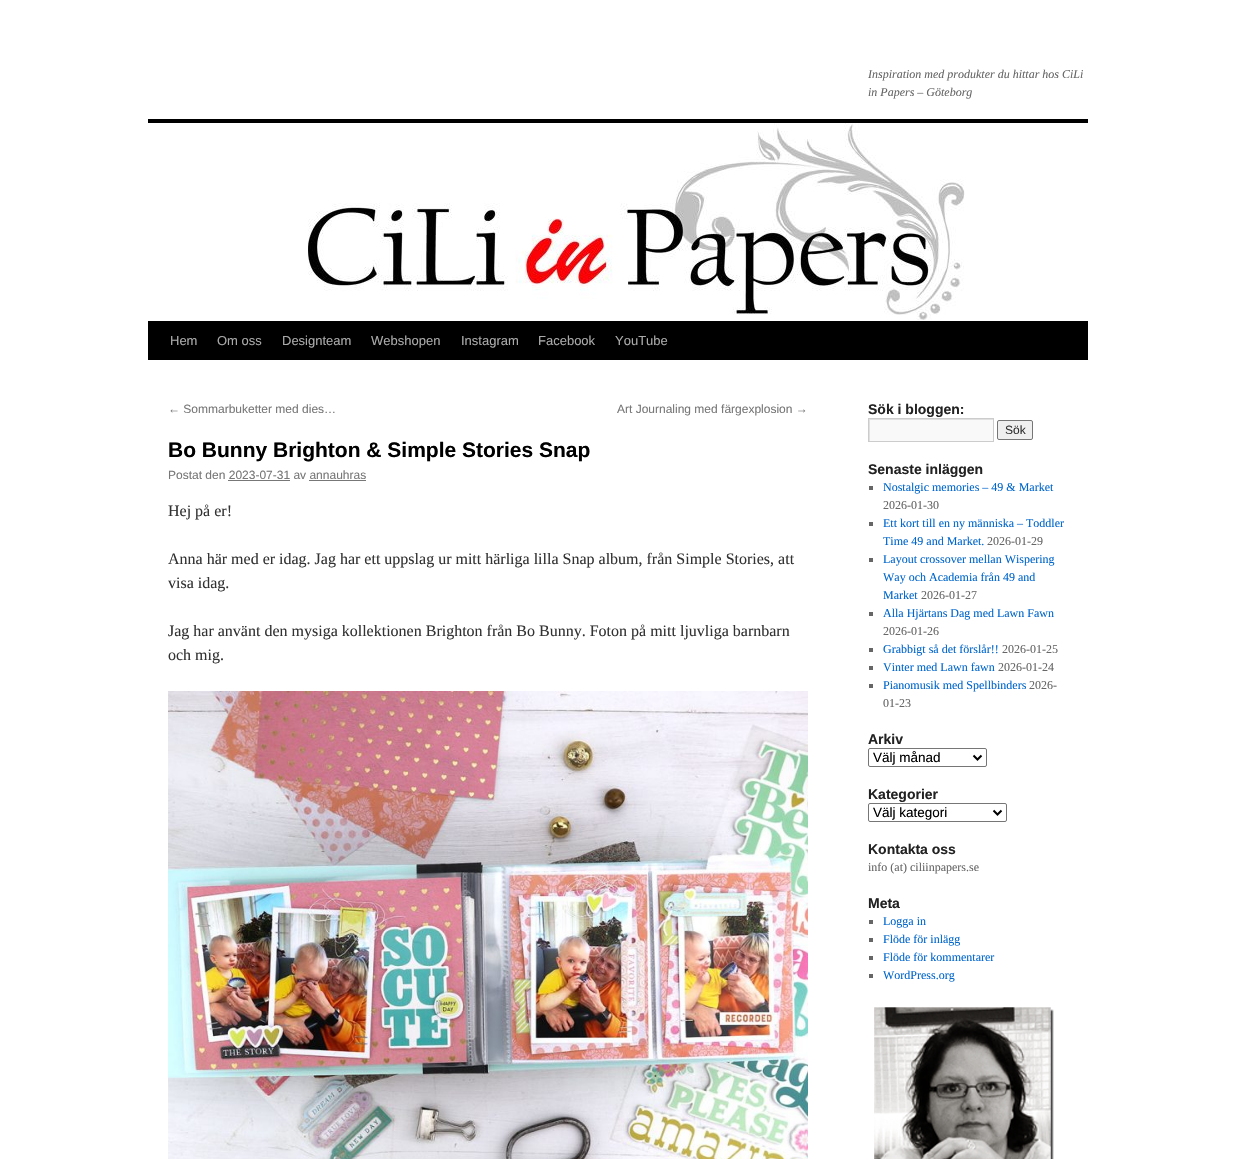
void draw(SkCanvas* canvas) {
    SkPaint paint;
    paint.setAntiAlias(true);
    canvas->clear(0xFFFFFFFF);
    SkFont font1(fontMgr->matchFamilyStyle("Liberation Serif", SkFontStyle::Italic()), 12);
    font1.setSubpixel(true);
    paint.setColor(0xFF666666);
    canvas->drawString("Inspiration med produkter du hittar hos CiLi", 868, 78, font1, paint);
    canvas->drawString("in Papers – Göteborg", 868, 96, font1, paint);
    paint.setColor(0xFF000000);
    canvas->drawRect(SkRect::MakeXYWH(148, 119, 940, 4), paint);
    canvas->drawRect(SkRect::MakeXYWH(148, 321, 940, 39), paint);
    canvas->drawImageRect(SkImages::DeferredFromEncodedData(SkData::MakeFromFileName("img1.png")), SkRect::MakeXYWH(308, 123, 657, 197), SkSamplingOptions());
    SkFont font2(fontMgr->matchFamilyStyle("Liberation Sans", SkFontStyle::Normal()), 13);
    font2.setSubpixel(true);
    paint.setColor(0xFFAAAAAA);
    canvas->drawString("Hem", 170, 345, font2, paint);
    canvas->drawString("Om oss", 217, 345, font2, paint);
    canvas->drawString("Designteam", 282, 345, font2, paint);
    canvas->drawString("Webshopen", 371, 345, font2, paint);
    canvas->drawString("Instagram", 461, 345, font2, paint);
    canvas->drawString("Facebook", 538, 345, font2, paint);
    canvas->drawString("YouTube", 615, 345, font2, paint);
    SkFont font3(fontMgr->matchFamilyStyle("Liberation Sans", SkFontStyle::Normal()), 12);
    font3.setSubpixel(true);
    paint.setColor(0xFF777777);
    canvas->drawString("← Sommarbuketter med dies…", 168, 413, font3, paint);
    canvas->drawString("Art Journaling med färgexplosion →", 617, 413, font3, paint);
    SkFont font4(fontMgr->matchFamilyStyle("Liberation Sans", SkFontStyle::Bold()), 21);
    font4.setSubpixel(true);
    paint.setColor(0xFF000000);
    canvas->drawString("Bo Bunny Brighton & Simple Stories Snap", 168, 457, font4, paint);
    paint.setColor(0xFF777777);
    canvas->drawString("Postat den 2023-07-31 av annauhras", 168, 479, font3, paint);
    canvas->drawRect(SkRect::MakeXYWH(228, 480, 62, 1), paint);
    canvas->drawRect(SkRect::MakeXYWH(309, 480, 57, 1), paint);
    SkFont font5(fontMgr->matchFamilyStyle("Liberation Serif", SkFontStyle::Normal()), 16);
    font5.setSubpixel(true);
    paint.setColor(0xFF333333);
    canvas->drawString("Hej på er!", 168, 516, font5, paint);
    canvas->drawString("Anna här med er idag. Jag har ett uppslag ur mitt härliga lilla Snap album, från Simple Stories, att", 168, 564, font5, paint);
    canvas->drawString("visa idag.", 168, 588, font5, paint);
    canvas->drawString("Jag har använt den mysiga kollektionen Brighton från Bo Bunny. Foton på mitt ljuvliga barnbarn", 168, 636, font5, paint);
    canvas->drawString("och mig.", 168, 660, font5, paint);
    canvas->drawImageRect(SkImages::DeferredFromEncodedData(SkData::MakeFromFileName("img2.png")), SkRect::MakeXYWH(168, 691, 640, 468), SkSamplingOptions());
    SkFont font6(fontMgr->matchFamilyStyle("Liberation Sans", SkFontStyle::Bold()), 14);
    font6.setSubpixel(true);
    paint.setColor(0xFF222222);
    canvas->drawString("Sök i bloggen:", 868, 414, font6, paint);
    paint.setColor(0xFFF9F9F9);
    canvas->drawRect(SkRect::MakeXYWH(870, 420, 123, 21), paint);
    canvas->save();
    canvas->clipRect(SkRect::MakeXYWH(869, 419, 124, 22));
    paint.setColor(0xFFE0E0E0);
    canvas->drawPath(SkPathBuilder(SkPathFillType::kEvenOdd).moveTo(770, 320).lineTo(1092, 320).lineTo(1092, 540).lineTo(770, 540).close().moveTo(870, 420).lineTo(994, 420).lineTo(994, 442).lineTo(870, 442).close().detach(), paint);
    canvas->restore();
    paint.setStyle(SkPaint::kStroke_Style);
    paint.setStrokeWidth(1);
    paint.setColor(0xFFCCCCCC);
    canvas->drawRect(SkRect::MakeXYWH(868.5f, 418.5f, 125, 23), paint);
    paint.setStyle(SkPaint::kFill_Style);
    paint.setColor(0xFFEFEFEF);
    canvas->drawRoundRect(SkRect::MakeXYWH(997.5f, 420.5f, 35, 19), 1.5f, 1.5f, paint);
    paint.setStyle(SkPaint::kStroke_Style);
    paint.setColor(0xFF767676);
    canvas->drawRoundRect(SkRect::MakeXYWH(997.5f, 420.5f, 35, 19), 1.5f, 1.5f, paint);
    paint.setStyle(SkPaint::kFill_Style);
    paint.setColor(0xFF333333);
    canvas->drawString("Sök", 1005, 434, font3, paint);
    paint.setColor(0xFF222222);
    canvas->drawString("Senaste inläggen", 868, 474, font6, paint);
    paint.setColor(0xFF666666);
    canvas->drawRect(SkRect::MakeXYWH(869, 486, 4, 4), paint);
    SkFont font7(fontMgr->matchFamilyStyle("Liberation Serif", SkFontStyle::Normal()), 12);
    font7.setSubpixel(true);
    paint.setColor(0xFF0066CC);
    canvas->drawString("Nostalgic memories – 49 & Market", 883, 491, font7, paint);
    paint.setColor(0xFF666666);
    canvas->drawString("2026-01-30", 883, 509, font7, paint);
    canvas->drawRect(SkRect::MakeXYWH(869, 522, 4, 4), paint);
    paint.setColor(0xFF0066CC);
    canvas->drawString("Ett kort till en ny människa – Toddler", 883, 527, font7, paint);
    canvas->drawString("Time 49 and Market.", 883, 545, font7, paint);
    paint.setColor(0xFF666666);
    canvas->drawString("2026-01-29", 987, 545, font7, paint);
    canvas->drawRect(SkRect::MakeXYWH(869, 558, 4, 4), paint);
    paint.setColor(0xFF0066CC);
    canvas->drawString("Layout crossover mellan Wispering", 883, 563, font7, paint);
    canvas->drawString("Way och Academia från 49 and", 883, 581, font7, paint);
    canvas->drawString("Market", 883, 599, font7, paint);
    paint.setColor(0xFF666666);
    canvas->drawString("2026-01-27", 921, 599, font7, paint);
    canvas->drawRect(SkRect::MakeXYWH(869, 612, 4, 4), paint);
    paint.setColor(0xFF0066CC);
    canvas->drawString("Alla Hjärtans Dag med Lawn Fawn", 883, 617, font7, paint);
    paint.setColor(0xFF666666);
    canvas->drawString("2026-01-26", 883, 635, font7, paint);
    canvas->drawRect(SkRect::MakeXYWH(869, 648, 4, 4), paint);
    paint.setColor(0xFF0066CC);
    canvas->drawString("Grabbigt så det förslår!!", 883, 653, font7, paint);
    paint.setColor(0xFF666666);
    canvas->drawString("2026-01-25", 1002, 653, font7, paint);
    canvas->drawRect(SkRect::MakeXYWH(869, 666, 4, 4), paint);
    paint.setColor(0xFF0066CC);
    canvas->drawString("Vinter med Lawn fawn", 883, 671, font7, paint);
    paint.setColor(0xFF666666);
    canvas->drawString("2026-01-24", 998, 671, font7, paint);
    canvas->drawRect(SkRect::MakeXYWH(869, 684, 4, 4), paint);
    paint.setColor(0xFF0066CC);
    canvas->drawString("Pianomusik med Spellbinders", 883, 689, font7, paint);
    paint.setColor(0xFF666666);
    canvas->drawString("2026-", 1029, 689, font7, paint);
    canvas->drawString("01-23", 883, 707, font7, paint);
    paint.setColor(0xFF222222);
    canvas->drawString("Arkiv", 868, 744, font6, paint);
    paint.setStyle(SkPaint::kStroke_Style);
    paint.setColor(0xFF767676);
    canvas->drawRoundRect(SkRect::MakeXYWH(868.5f, 748.5f, 118, 18), 1.5f, 1.5f, paint);
    paint.setStrokeWidth(2);
    paint.setColor(0xFF000000);
    canvas->drawPath(SkPathBuilder().moveTo(973.5f, 755.5f).lineTo(977.5f, 759.5f).lineTo(981.5f, 755.5f).detach(), paint);
    SkFont font8(fontMgr->matchFamilyStyle("Liberation Sans", SkFontStyle::Normal()), 13.5f);
    font8.setSubpixel(true);
    paint.setStyle(SkPaint::kFill_Style);
    canvas->drawString("Välj månad", 873, 762, font8, paint);
    paint.setColor(0xFF222222);
    canvas->drawString("Kategorier", 868, 799, font6, paint);
    paint.setStyle(SkPaint::kStroke_Style);
    paint.setStrokeWidth(1);
    paint.setColor(0xFF767676);
    canvas->drawRoundRect(SkRect::MakeXYWH(868.5f, 803.5f, 138, 18), 1.5f, 1.5f, paint);
    paint.setStrokeWidth(2);
    paint.setColor(0xFF000000);
    canvas->drawPath(SkPathBuilder().moveTo(993.5f, 810.5f).lineTo(997.5f, 814.5f).lineTo(1001.5f, 810.5f).detach(), paint);
    paint.setStyle(SkPaint::kFill_Style);
    canvas->drawString("Välj kategori", 873, 817, font8, paint);
    paint.setColor(0xFF222222);
    canvas->drawString("Kontakta oss", 868, 854, font6, paint);
    paint.setColor(0xFF666666);
    canvas->drawString("info (at) ciliinpapers.se", 868, 871, font7, paint);
    paint.setColor(0xFF222222);
    canvas->drawString("Meta", 868, 908, font6, paint);
    paint.setColor(0xFF666666);
    canvas->drawRect(SkRect::MakeXYWH(869, 920, 4, 4), paint);
    paint.setColor(0xFF0066CC);
    canvas->drawString("Logga in", 883, 925, font7, paint);
    paint.setColor(0xFF666666);
    canvas->drawRect(SkRect::MakeXYWH(869, 938, 4, 4), paint);
    paint.setColor(0xFF0066CC);
    canvas->drawString("Flöde för inlägg", 883, 943, font7, paint);
    paint.setColor(0xFF666666);
    canvas->drawRect(SkRect::MakeXYWH(869, 956, 4, 4), paint);
    paint.setColor(0xFF0066CC);
    canvas->drawString("Flöde för kommentarer", 883, 961, font7, paint);
    paint.setColor(0xFF666666);
    canvas->drawRect(SkRect::MakeXYWH(869, 974, 4, 4), paint);
    paint.setColor(0xFF0066CC);
    canvas->drawString("WordPress.org", 883, 979, font7, paint);
    canvas->drawImageRect(SkImages::DeferredFromEncodedData(SkData::MakeFromFileName("img3.png")), SkRect::MakeXYWH(874, 1007, 180, 152), SkSamplingOptions());
}
